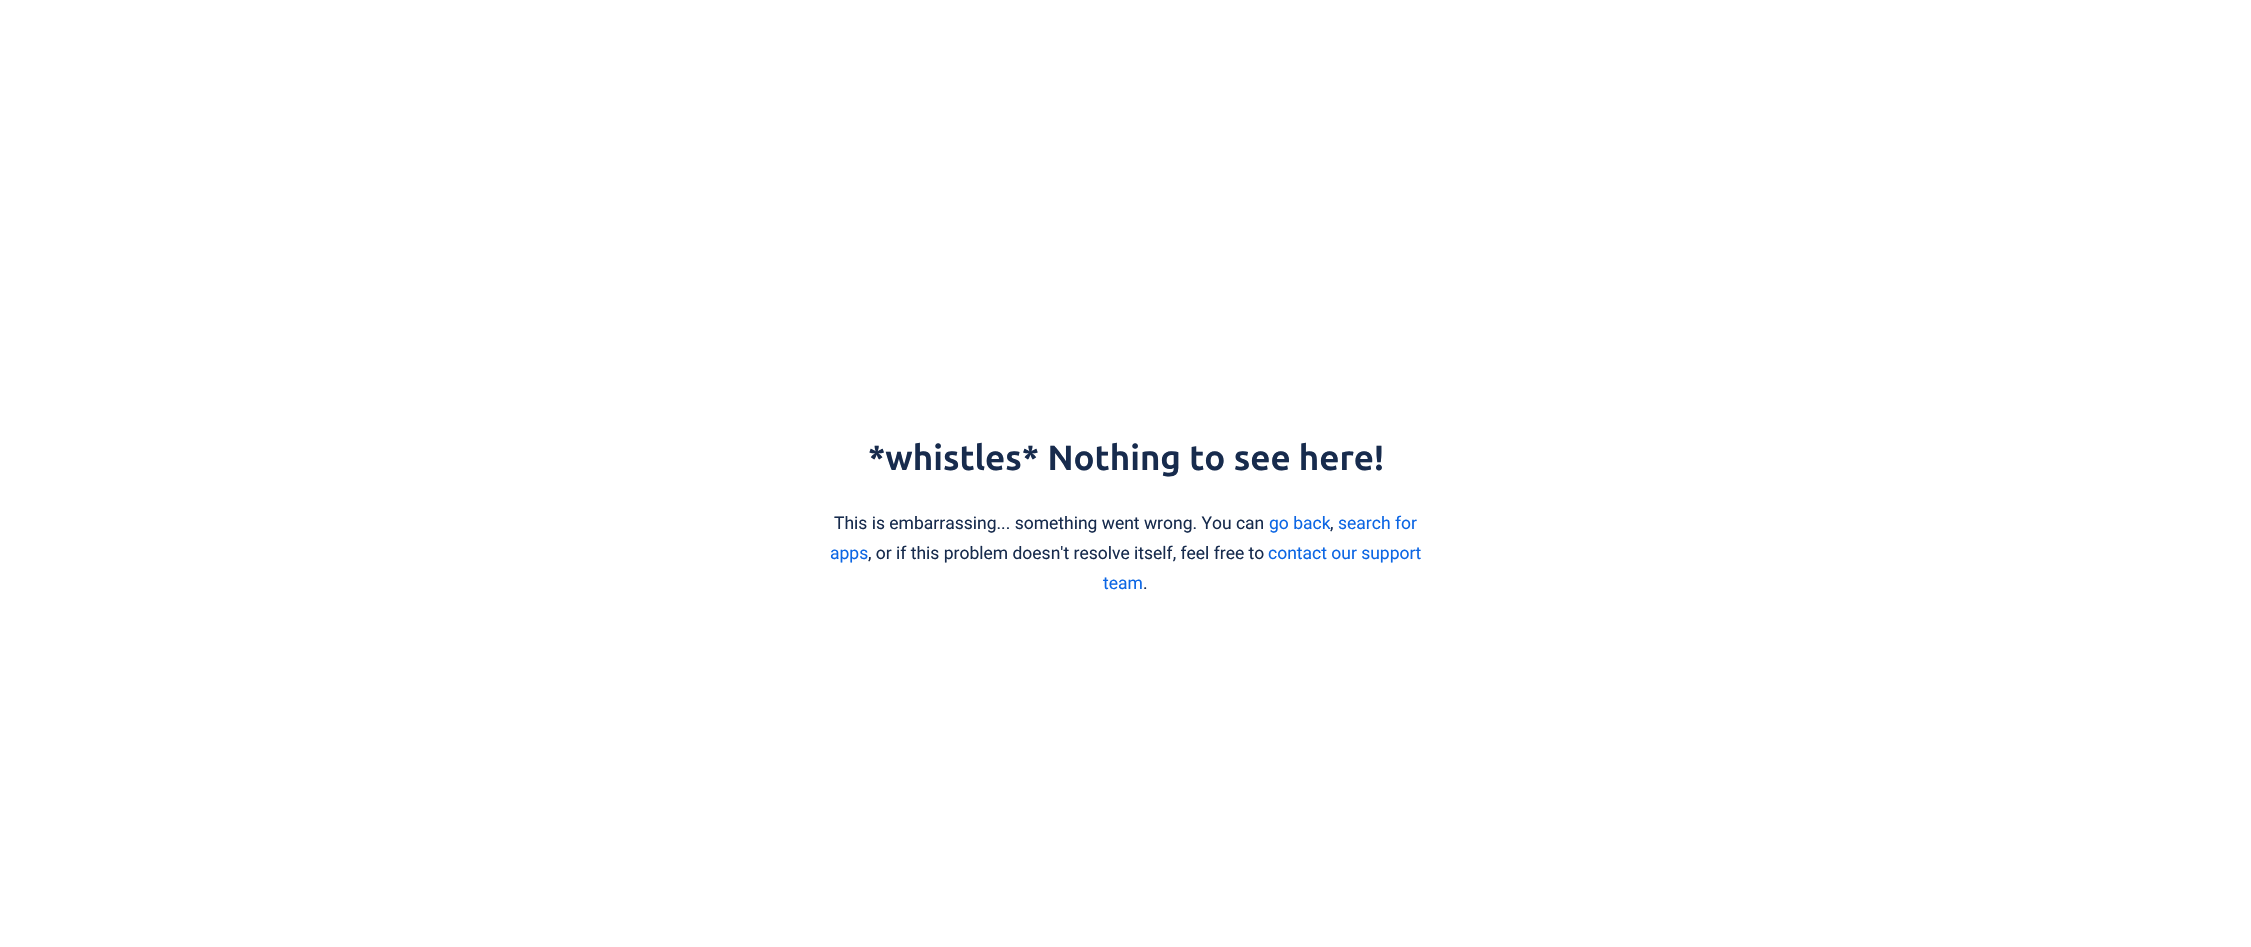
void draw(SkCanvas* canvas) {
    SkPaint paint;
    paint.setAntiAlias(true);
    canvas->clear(0xFFFFFFFF);
    SkFont font1(fontMgr->matchFamilyStyle("Ubuntu", SkFontStyle::Bold()), 35);
    font1.setSubpixel(true);
    paint.setColor(0xFF172B4D);
    canvas->drawString("*whistles* Nothing to see here!", 868, 470, font1, paint);
    SkFont font2(fontMgr->matchFamilyStyle("Roboto", SkFontStyle::Normal()), 17.5f);
    font2.setSubpixel(true);
    canvas->drawString("This is embarrassing... something went wrong. You can", 834, 529, font2, paint);
    paint.setColor(0xFF0C66E4);
    canvas->drawString("go back", 1269, 529, font2, paint);
    paint.setColor(0xFF172B4D);
    canvas->drawString(",", 1330, 529, font2, paint);
    paint.setColor(0xFF0C66E4);
    canvas->drawString("search for", 1338, 529, font2, paint);
    canvas->drawString("apps", 830, 559, font2, paint);
    paint.setColor(0xFF172B4D);
    canvas->drawString(", or if this problem doesn't resolve itself, feel free to", 868, 559, font2, paint);
    paint.setColor(0xFF0C66E4);
    canvas->drawString("contact our support", 1268, 559, font2, paint);
    canvas->drawString("team", 1103, 589, font2, paint);
    paint.setColor(0xFF172B4D);
    canvas->drawString(".", 1143, 589, font2, paint);
}
